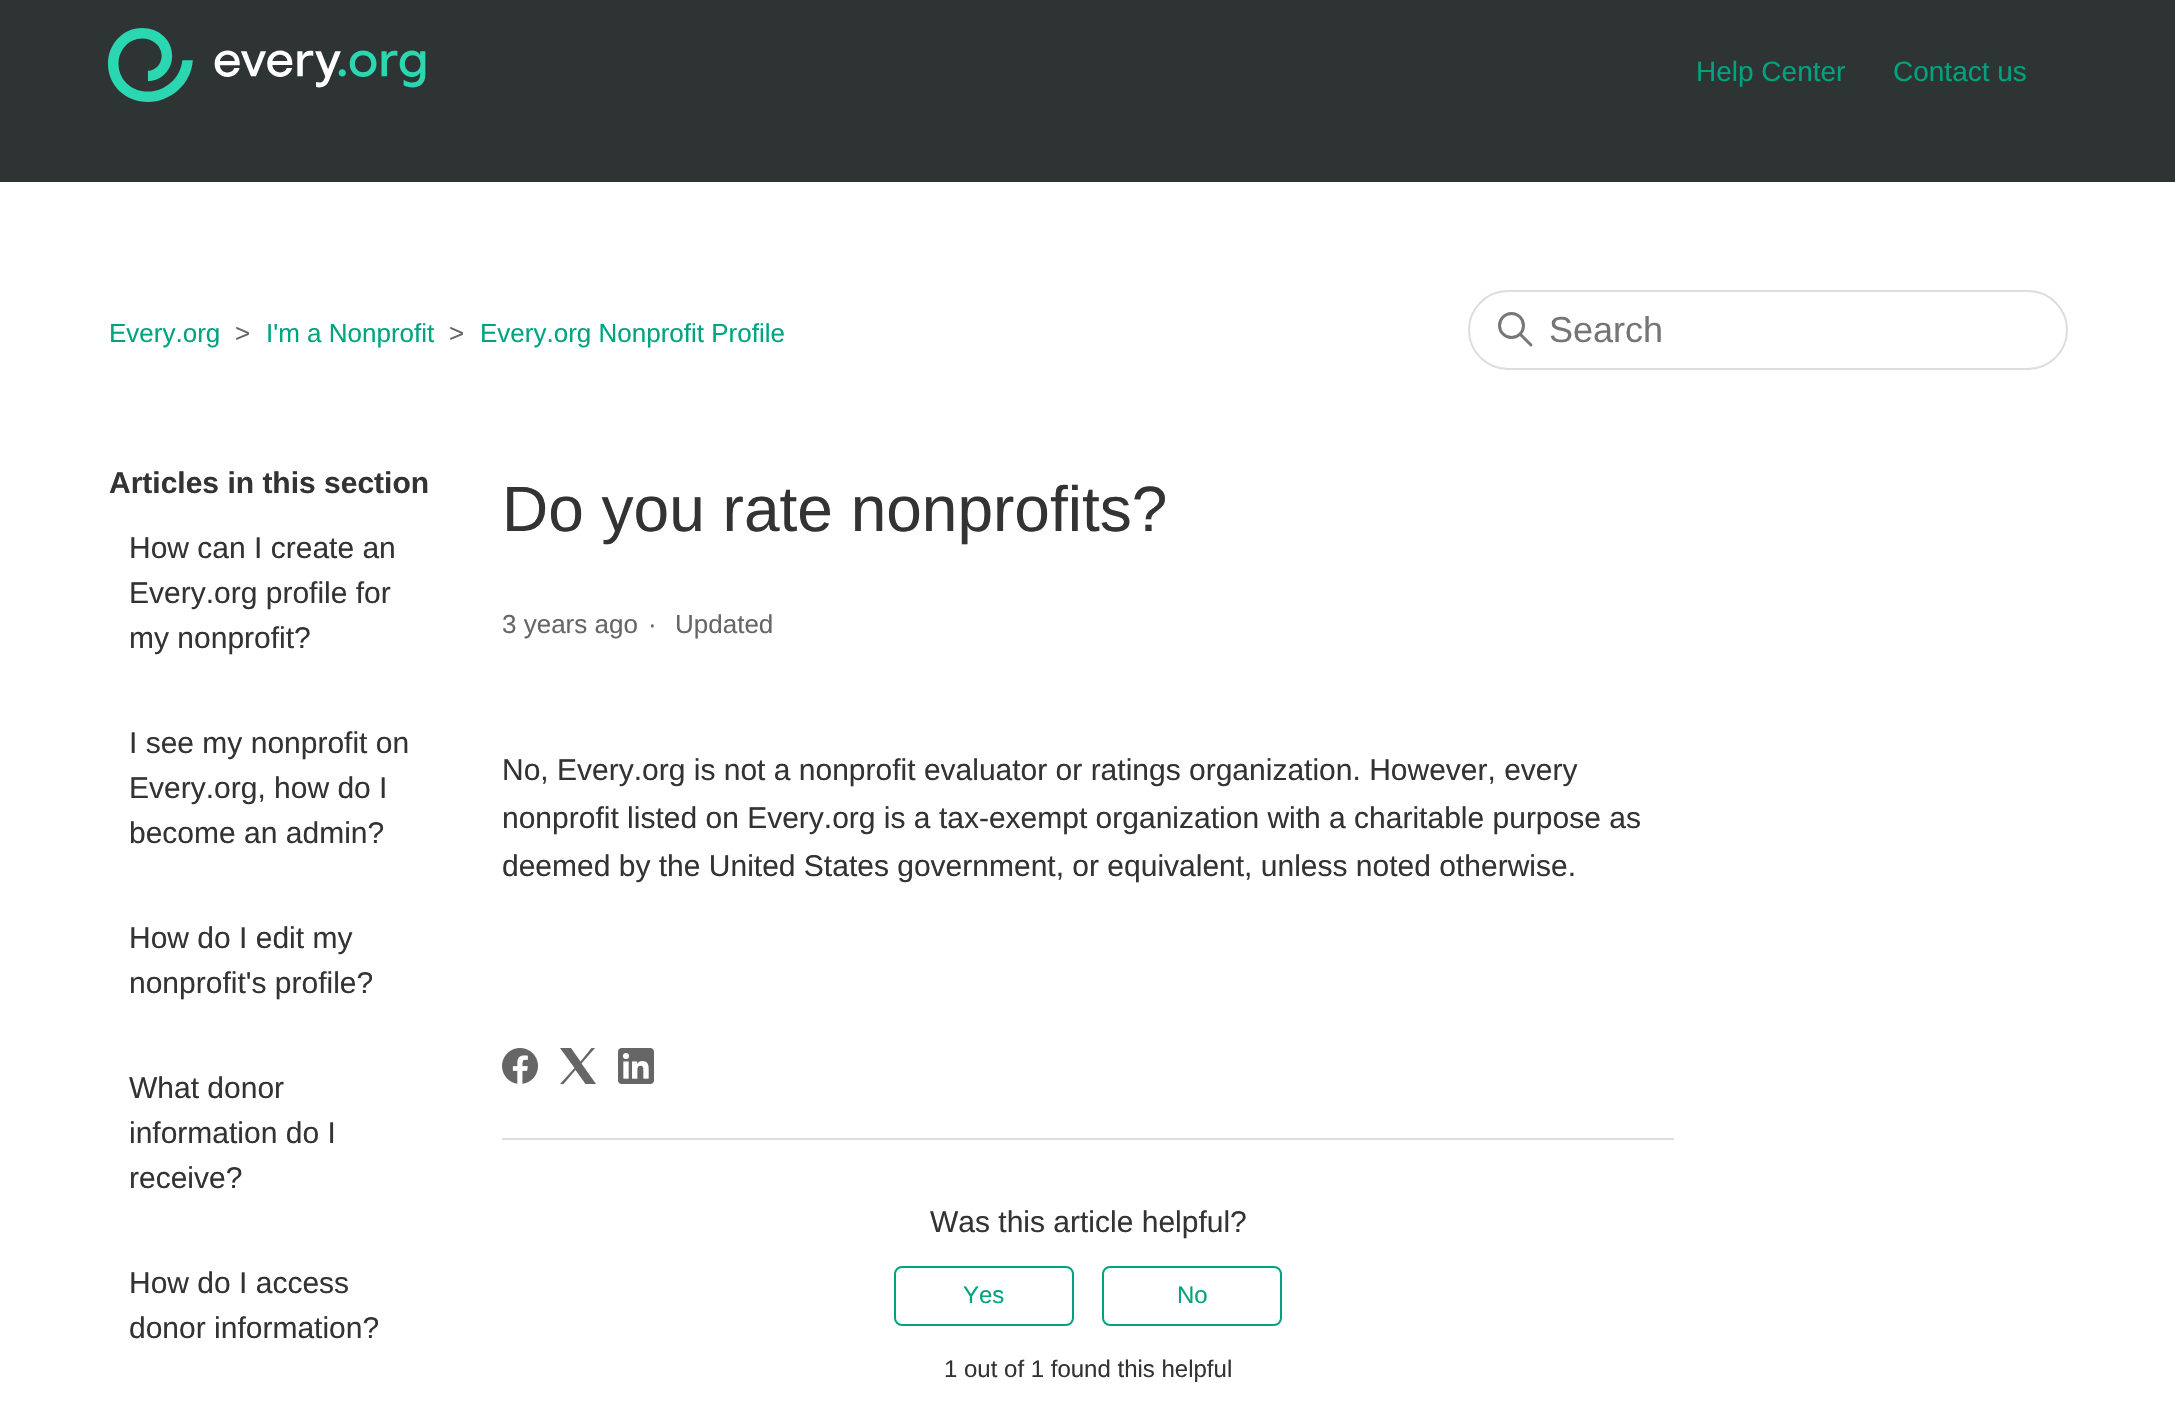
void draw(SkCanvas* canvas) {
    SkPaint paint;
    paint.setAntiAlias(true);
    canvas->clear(0xFF2E3434);
    canvas->drawImageRect(SkImages::DeferredFromEncodedData(SkData::MakeFromFileName("img1.png")), SkRect::MakeXYWH(108, 28, 318, 74), SkSamplingOptions());
    SkFont font1(fontMgr->matchFamilyStyle("Liberation Sans", SkFontStyle::Normal()), 28);
    font1.setSubpixel(true);
    paint.setColor(0xFF00A37F);
    canvas->drawString("Help Center", 1696, 81, font1, paint);
    canvas->drawString("Contact us", 1893, 81, font1, paint);
    paint.setColor(0xFFFFFFFF);
    canvas->drawRect(SkRect::MakeXYWH(0, 182, 2175, 1227), paint);
    SkFont font2(fontMgr->matchFamilyStyle("Liberation Sans", SkFontStyle::Normal()), 26);
    font2.setSubpixel(true);
    paint.setColor(0xFF00A37F);
    canvas->drawString("Every.org", 109, 342, font2, paint);
    paint.setColor(0xFF666666);
    canvas->drawString(">", 235, 342, font2, paint);
    paint.setColor(0xFF00A37F);
    canvas->drawString("I'm a Nonprofit", 266, 342, font2, paint);
    paint.setColor(0xFF666666);
    canvas->drawString(">", 449, 342, font2, paint);
    paint.setColor(0xFF00A37F);
    canvas->drawString("Every.org Nonprofit Profile", 480, 342, font2, paint);
    paint.setStyle(SkPaint::kStroke_Style);
    paint.setStrokeWidth(2);
    paint.setColor(0xFFDDDDDD);
    canvas->drawRoundRect(SkRect::MakeXYWH(1469, 291, 598, 78), 39, 39, paint);
    paint.setStrokeWidth(3);
    paint.setColor(0xFF777777);
    canvas->drawCircle(1511.5f, 325.5f, 12, paint);
    paint.setStrokeCap(SkPaint::kRound_Cap);
    canvas->drawPath(SkPathBuilder().moveTo(1531, 345).lineTo(1520.5f, 334.5f).detach(), paint);
    SkFont font3(fontMgr->matchFamilyStyle("Liberation Sans", SkFontStyle::Normal()), 36);
    font3.setSubpixel(true);
    paint.setStyle(SkPaint::kFill_Style);
    paint.setColor(0xFF757575);
    canvas->drawString("Search", 1549, 342, font3, paint);
    SkFont font4(fontMgr->matchFamilyStyle("Liberation Sans", SkFontStyle::Bold()), 30);
    font4.setSubpixel(true);
    paint.setColor(0xFF333333);
    canvas->drawString("Articles in this section", 109, 493, font4, paint);
    SkFont font5(fontMgr->matchFamilyStyle("Liberation Sans", SkFontStyle::Normal()), 30);
    font5.setSubpixel(true);
    canvas->drawString("How can I create an", 129, 558, font5, paint);
    canvas->drawString("Every.org profile for", 129, 603, font5, paint);
    canvas->drawString("my nonprofit?", 129, 648, font5, paint);
    canvas->drawString("I see my nonprofit on", 129, 753, font5, paint);
    canvas->drawString("Every.org, how do I", 129, 798, font5, paint);
    canvas->drawString("become an admin?", 129, 843, font5, paint);
    canvas->drawString("How do I edit my", 129, 948, font5, paint);
    canvas->drawString("nonprofit's profile?", 129, 993, font5, paint);
    canvas->drawString("What donor", 129, 1098, font5, paint);
    canvas->drawString("information do I", 129, 1143, font5, paint);
    canvas->drawString("receive?", 129, 1188, font5, paint);
    canvas->drawString("How do I access", 129, 1293, font5, paint);
    canvas->drawString("donor information?", 129, 1338, font5, paint);
    SkFont font6(fontMgr->matchFamilyStyle("Liberation Sans", SkFontStyle::Normal()), 64);
    font6.setSubpixel(true);
    canvas->drawString("Do you rate nonprofits?", 502, 531, font6, paint);
    paint.setColor(0xFF666666);
    canvas->drawString("3 years ago", 502, 633, font2, paint);
    canvas->drawString("·", 648, 633, font2, paint);
    canvas->drawString("Updated", 675, 633, font2, paint);
    paint.setColor(0xFF333333);
    canvas->drawString("No, Every.org is not a nonprofit evaluator or ratings organization. However, every", 502, 780, font5, paint);
    canvas->drawString("nonprofit listed on Every.org is a tax-exempt organization with a charitable purpose as", 502, 828, font5, paint);
    canvas->drawString("deemed by the United States government, or equivalent, unless noted otherwise.", 502, 876, font5, paint);
    canvas->drawImageRect(SkImages::DeferredFromEncodedData(SkData::MakeFromFileName("img2.png")), SkRect::MakeXYWH(502, 1048, 36, 36), SkSamplingOptions());
    paint.setColor(0xFF666666);
    canvas->drawPath(SkPathBuilder().moveTo(560, 1048).lineTo(571, 1048).lineTo(580.5f, 1061.5f).lineTo(591.5f, 1048).lineTo(595, 1048).lineTo(581.5f, 1063.5f).lineTo(596, 1084).lineTo(585.5f, 1084).lineTo(575.5f, 1070).lineTo(563.5f, 1084).lineTo(560, 1084).lineTo(574.5f, 1068).close().detach(), paint);
    canvas->drawImageRect(SkImages::DeferredFromEncodedData(SkData::MakeFromFileName("img3.png")), SkRect::MakeXYWH(618, 1048, 36, 36), SkSamplingOptions());
    paint.setColor(0xFFDDDDDD);
    canvas->drawRect(SkRect::MakeXYWH(502, 1138, 1172, 2), paint);
    paint.setColor(0xFF333333);
    canvas->drawString("Was this article helpful?", 930, 1232, font5, paint);
    paint.setStyle(SkPaint::kStroke_Style);
    paint.setStrokeWidth(2);
    paint.setStrokeCap(SkPaint::kButt_Cap);
    paint.setColor(0xFF00A37F);
    canvas->drawRoundRect(SkRect::MakeXYWH(895, 1267, 178, 58), 7, 7, paint);
    SkFont font7(fontMgr->matchFamilyStyle("Liberation Sans", SkFontStyle::Normal()), 24);
    font7.setSubpixel(true);
    paint.setStyle(SkPaint::kFill_Style);
    canvas->drawString("Yes", 963, 1303, font7, paint);
    paint.setStyle(SkPaint::kStroke_Style);
    canvas->drawRoundRect(SkRect::MakeXYWH(1103, 1267, 178, 58), 7, 7, paint);
    paint.setStyle(SkPaint::kFill_Style);
    canvas->drawString("No", 1177, 1303, font7, paint);
    paint.setColor(0xFF333333);
    canvas->drawString("1 out of 1 found this helpful", 944, 1377, font7, paint);
}
